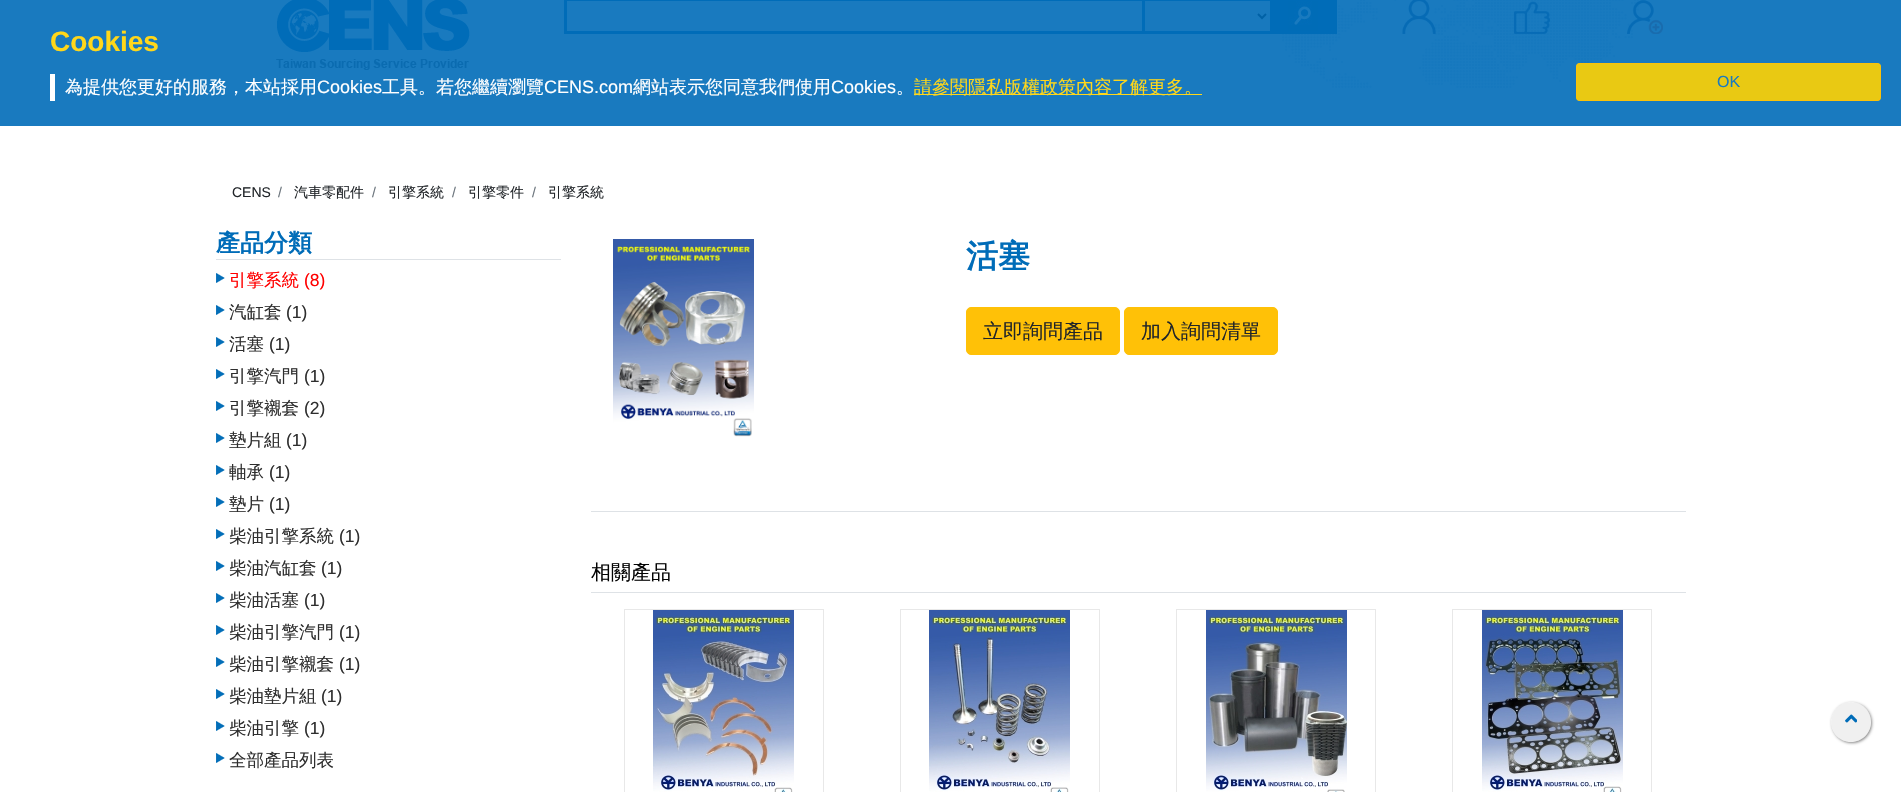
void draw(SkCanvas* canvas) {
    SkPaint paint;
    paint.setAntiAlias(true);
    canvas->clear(0xFFFFFFFF);
    canvas->drawImageRect(SkImages::DeferredFromEncodedData(SkData::MakeFromFileName("img1.png")), SkRect::MakeXYWH(1282, 0, 361, 88), SkSamplingOptions());
    canvas->drawImageRect(SkImages::DeferredFromEncodedData(SkData::MakeFromFileName("img2.png")), SkRect::MakeXYWH(276, 0, 194, 70), SkSamplingOptions());
    paint.setColor(0xFF006CB8);
    canvas->drawRect(SkRect::MakeXYWH(564, 0, 773, 34), paint);
    paint.setColor(0xFFFFFFFF);
    canvas->drawRect(SkRect::MakeXYWH(567, 1, 575, 30), paint);
    paint.setColor(0xFFEFEFEF);
    canvas->drawRect(SkRect::MakeXYWH(1145, 1, 125, 30), paint);
    paint.setStyle(SkPaint::kStroke_Style);
    paint.setStrokeWidth(2);
    paint.setColor(0xFF000000);
    canvas->drawPath(SkPathBuilder().moveTo(1258, 14).lineTo(1262, 18).lineTo(1266, 14).detach(), paint);
    canvas->drawImageRect(SkImages::DeferredFromEncodedData(SkData::MakeFromFileName("img3.png")), SkRect::MakeXYWH(1288, 1, 30, 30), SkSamplingOptions());
    canvas->drawImageRect(SkImages::DeferredFromEncodedData(SkData::MakeFromFileName("img4.png")), SkRect::MakeXYWH(1402, 0, 34, 34), SkSamplingOptions());
    canvas->drawImageRect(SkImages::DeferredFromEncodedData(SkData::MakeFromFileName("img5.png")), SkRect::MakeXYWH(1514, 1, 36, 33), SkSamplingOptions());
    canvas->drawImageRect(SkImages::DeferredFromEncodedData(SkData::MakeFromFileName("img6.png")), SkRect::MakeXYWH(1627, 0, 36, 34), SkSamplingOptions());
    paint.setStyle(SkPaint::kFill_Style);
    paint.setColor(0xE6006CB8);
    canvas->drawRect(SkRect::MakeXYWH(0, 0, 1901, 126), paint);
    SkFont font1(fontMgr->matchFamilyStyle("Liberation Sans", SkFontStyle::Bold()), 28);
    font1.setSubpixel(true);
    paint.setColor(0xFFFFD71A);
    canvas->drawString("Cookies", 50, 51, font1, paint);
    paint.setColor(0xFFFFFFFF);
    canvas->drawRect(SkRect::MakeXYWH(50, 74, 5, 27), paint);
    SkFont font2(fontMgr->matchFamilyStyle("WenQuanYi Zen Hei", SkFontStyle(500, SkFontStyle::kNormal_Width, SkFontStyle::kUpright_Slant)), 18);
    font2.setSubpixel(true);
    canvas->drawString("為提供您更好的服務，本站採用", 65, 93, font2, paint);
    SkFont font3(fontMgr->matchFamilyStyle("Liberation Sans", SkFontStyle::Normal()), 18);
    font3.setSubpixel(true);
    canvas->drawString("Cookies", 317, 93, font3, paint);
    canvas->drawString("工具。若您繼續瀏覽", 382, 93, font2, paint);
    canvas->drawString("CENS.com", 544, 93, font3, paint);
    canvas->drawString("網站表示您同意我們使用", 633, 93, font2, paint);
    canvas->drawString("Cookies", 831, 93, font3, paint);
    canvas->drawString("。", 896, 93, font2, paint);
    paint.setColor(0xFFFFD71A);
    canvas->drawRect(SkRect::MakeXYWH(914, 94, 288, 1), paint);
    canvas->drawString("請參閱隱私版權政策內容了解更多。", 914, 93, font2, paint);
    paint.setColor(0xE6FFD200);
    canvas->drawRoundRect(SkRect::MakeXYWH(1576, 63, 305, 38), 4, 4, paint);
    paint.setStyle(SkPaint::kStroke_Style);
    paint.setStrokeWidth(1);
    paint.setColor(0xE6FFC107);
    canvas->drawRoundRect(SkRect::MakeXYWH(1576.5f, 63.5f, 304, 37), 3.5f, 3.5f, paint);
    SkFont font4(fontMgr->matchFamilyStyle("Liberation Sans", SkFontStyle::Normal()), 16);
    font4.setSubpixel(true);
    paint.setStyle(SkPaint::kFill_Style);
    paint.setColor(0xFF1A7BBF);
    canvas->drawString("OK", 1717, 87, font4, paint);
    SkFont font5(fontMgr->matchFamilyStyle("Liberation Sans", SkFontStyle::Normal()), 14);
    font5.setSubpixel(true);
    paint.setColor(0xFF212529);
    canvas->drawString("CENS", 232, 197, font5, paint);
    paint.setColor(0xFF6C757D);
    canvas->drawString("/", 278, 197, font5, paint);
    SkFont font6(fontMgr->matchFamilyStyle("WenQuanYi Zen Hei", SkFontStyle(500, SkFontStyle::kNormal_Width, SkFontStyle::kUpright_Slant)), 14);
    font6.setSubpixel(true);
    paint.setColor(0xFF212529);
    canvas->drawString("汽車零配件", 294, 197, font6, paint);
    paint.setColor(0xFF6C757D);
    canvas->drawString("/", 372, 197, font5, paint);
    paint.setColor(0xFF212529);
    canvas->drawString("引擎系統", 388, 197, font6, paint);
    paint.setColor(0xFF6C757D);
    canvas->drawString("/", 452, 197, font5, paint);
    paint.setColor(0xFF212529);
    canvas->drawString("引擎零件", 468, 197, font6, paint);
    paint.setColor(0xFF6C757D);
    canvas->drawString("/", 532, 197, font5, paint);
    paint.setColor(0xFF212529);
    canvas->drawString("引擎系統", 548, 197, font6, paint);
    paint.setColor(0xFFDEE2E6);
    canvas->drawRect(SkRect::MakeXYWH(216, 259, 345, 1), paint);
    SkFont font7(fontMgr->matchFamilyStyle("WenQuanYi Zen Hei", SkFontStyle::Bold()), 24);
    font7.setSubpixel(true);
    paint.setColor(0xFF006CB8);
    canvas->drawString("產品分類", 216, 251, font7, paint);
    canvas->drawImageRect(SkImages::DeferredFromEncodedData(SkData::MakeFromFileName("img7.png")), SkRect::MakeXYWH(216, 273, 9, 10), SkSamplingOptions());
    SkFont font8(fontMgr->matchFamilyStyle("WenQuanYi Zen Hei", SkFontStyle(500, SkFontStyle::kNormal_Width, SkFontStyle::kUpright_Slant)), 17.5f);
    font8.setSubpixel(true);
    paint.setColor(0xFFFF0000);
    canvas->drawString("引擎系統", 229, 286, font8, paint);
    SkFont font9(fontMgr->matchFamilyStyle("Liberation Sans", SkFontStyle::Normal()), 17.5f);
    font9.setSubpixel(true);
    canvas->drawString("(8)", 304, 286, font9, paint);
    canvas->drawImageRect(SkImages::DeferredFromEncodedData(SkData::MakeFromFileName("img7.png")), SkRect::MakeXYWH(216, 305, 9, 10), SkSamplingOptions());
    paint.setColor(0xFF2E2E2E);
    canvas->drawString("汽缸套", 229, 318, font8, paint);
    canvas->drawString("(1)", 286, 318, font9, paint);
    canvas->drawImageRect(SkImages::DeferredFromEncodedData(SkData::MakeFromFileName("img7.png")), SkRect::MakeXYWH(216, 337, 9, 10), SkSamplingOptions());
    canvas->drawString("活塞", 229, 350, font8, paint);
    canvas->drawString("(1)", 269, 350, font9, paint);
    canvas->drawImageRect(SkImages::DeferredFromEncodedData(SkData::MakeFromFileName("img7.png")), SkRect::MakeXYWH(216, 369, 9, 10), SkSamplingOptions());
    canvas->drawString("引擎汽門", 229, 382, font8, paint);
    canvas->drawString("(1)", 304, 382, font9, paint);
    canvas->drawImageRect(SkImages::DeferredFromEncodedData(SkData::MakeFromFileName("img7.png")), SkRect::MakeXYWH(216, 401, 9, 10), SkSamplingOptions());
    canvas->drawString("引擎襯套", 229, 414, font8, paint);
    canvas->drawString("(2)", 304, 414, font9, paint);
    canvas->drawImageRect(SkImages::DeferredFromEncodedData(SkData::MakeFromFileName("img7.png")), SkRect::MakeXYWH(216, 433, 9, 10), SkSamplingOptions());
    canvas->drawString("墊片組", 229, 446, font8, paint);
    canvas->drawString("(1)", 286, 446, font9, paint);
    canvas->drawImageRect(SkImages::DeferredFromEncodedData(SkData::MakeFromFileName("img7.png")), SkRect::MakeXYWH(216, 465, 9, 10), SkSamplingOptions());
    canvas->drawString("軸承", 229, 478, font8, paint);
    canvas->drawString("(1)", 269, 478, font9, paint);
    canvas->drawImageRect(SkImages::DeferredFromEncodedData(SkData::MakeFromFileName("img7.png")), SkRect::MakeXYWH(216, 497, 9, 10), SkSamplingOptions());
    canvas->drawString("墊片", 229, 510, font8, paint);
    canvas->drawString("(1)", 269, 510, font9, paint);
    canvas->drawImageRect(SkImages::DeferredFromEncodedData(SkData::MakeFromFileName("img7.png")), SkRect::MakeXYWH(216, 529, 9, 10), SkSamplingOptions());
    canvas->drawString("柴油引擎系統", 229, 542, font8, paint);
    canvas->drawString("(1)", 339, 542, font9, paint);
    canvas->drawImageRect(SkImages::DeferredFromEncodedData(SkData::MakeFromFileName("img7.png")), SkRect::MakeXYWH(216, 561, 9, 10), SkSamplingOptions());
    canvas->drawString("柴油汽缸套", 229, 574, font8, paint);
    canvas->drawString("(1)", 321, 574, font9, paint);
    canvas->drawImageRect(SkImages::DeferredFromEncodedData(SkData::MakeFromFileName("img7.png")), SkRect::MakeXYWH(216, 593, 9, 10), SkSamplingOptions());
    canvas->drawString("柴油活塞", 229, 606, font8, paint);
    canvas->drawString("(1)", 304, 606, font9, paint);
    canvas->drawImageRect(SkImages::DeferredFromEncodedData(SkData::MakeFromFileName("img7.png")), SkRect::MakeXYWH(216, 625, 9, 10), SkSamplingOptions());
    canvas->drawString("柴油引擎汽門", 229, 638, font8, paint);
    canvas->drawString("(1)", 339, 638, font9, paint);
    canvas->drawImageRect(SkImages::DeferredFromEncodedData(SkData::MakeFromFileName("img7.png")), SkRect::MakeXYWH(216, 657, 9, 10), SkSamplingOptions());
    canvas->drawString("柴油引擎襯套", 229, 670, font8, paint);
    canvas->drawString("(1)", 339, 670, font9, paint);
    canvas->drawImageRect(SkImages::DeferredFromEncodedData(SkData::MakeFromFileName("img7.png")), SkRect::MakeXYWH(216, 689, 9, 10), SkSamplingOptions());
    canvas->drawString("柴油墊片組", 229, 702, font8, paint);
    canvas->drawString("(1)", 321, 702, font9, paint);
    canvas->drawImageRect(SkImages::DeferredFromEncodedData(SkData::MakeFromFileName("img7.png")), SkRect::MakeXYWH(216, 721, 9, 10), SkSamplingOptions());
    canvas->drawString("柴油引擎", 229, 734, font8, paint);
    canvas->drawString("(1)", 304, 734, font9, paint);
    canvas->drawImageRect(SkImages::DeferredFromEncodedData(SkData::MakeFromFileName("img7.png")), SkRect::MakeXYWH(216, 753, 9, 10), SkSamplingOptions());
    canvas->drawString("全部產品列表", 229, 766, font8, paint);
    canvas->drawImageRect(SkImages::DeferredFromEncodedData(SkData::MakeFromFileName("img8.png")), SkRect::MakeXYWH(613, 239, 141, 198), SkSamplingOptions());
    SkFont font10(fontMgr->matchFamilyStyle("WenQuanYi Zen Hei", SkFontStyle::Bold()), 32);
    font10.setSubpixel(true);
    paint.setColor(0xFF006CB8);
    canvas->drawString("活塞", 966, 267, font10, paint);
    paint.setColor(0xFFFFC107);
    canvas->drawRoundRect(SkRect::MakeXYWH(966.5f, 307.5f, 153, 47), 4.5f, 4.5f, paint);
    paint.setStyle(SkPaint::kStroke_Style);
    canvas->drawRoundRect(SkRect::MakeXYWH(966.5f, 307.5f, 153, 47), 4.5f, 4.5f, paint);
    SkFont font11(fontMgr->matchFamilyStyle("WenQuanYi Zen Hei", SkFontStyle(500, SkFontStyle::kNormal_Width, SkFontStyle::kUpright_Slant)), 20);
    font11.setSubpixel(true);
    paint.setStyle(SkPaint::kFill_Style);
    paint.setColor(0xFF212529);
    canvas->drawString("立即詢問產品", 983, 338, font11, paint);
    paint.setColor(0xFFFFC107);
    canvas->drawRoundRect(SkRect::MakeXYWH(1124.5f, 307.5f, 153, 47), 4.5f, 4.5f, paint);
    paint.setStyle(SkPaint::kStroke_Style);
    canvas->drawRoundRect(SkRect::MakeXYWH(1124.5f, 307.5f, 153, 47), 4.5f, 4.5f, paint);
    paint.setStyle(SkPaint::kFill_Style);
    paint.setColor(0xFF212529);
    canvas->drawString("加入詢問清單", 1141, 338, font11, paint);
    paint.setColor(0xFFDEE2E6);
    canvas->drawRect(SkRect::MakeXYWH(591, 511, 1095, 1), paint);
    canvas->drawRect(SkRect::MakeXYWH(591, 592, 1095, 1), paint);
    paint.setColor(0xFF030303);
    canvas->drawString("相關產品", 591, 579, font11, paint);
    paint.setStyle(SkPaint::kStroke_Style);
    paint.setColor(0xFFE8E8E8);
    canvas->drawRect(SkRect::MakeXYWH(624.5f, 609.5f, 199, 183), paint);
    canvas->drawImageRect(SkImages::DeferredFromEncodedData(SkData::MakeFromFileName("img9.png")), SkRect::MakeXYWH(653, 610, 141, 182), SkSamplingOptions());
    canvas->drawRect(SkRect::MakeXYWH(900.5f, 609.5f, 199, 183), paint);
    canvas->drawImageRect(SkImages::DeferredFromEncodedData(SkData::MakeFromFileName("img10.png")), SkRect::MakeXYWH(929, 610, 141, 182), SkSamplingOptions());
    canvas->drawRect(SkRect::MakeXYWH(1176.5f, 609.5f, 199, 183), paint);
    canvas->drawImageRect(SkImages::DeferredFromEncodedData(SkData::MakeFromFileName("img11.png")), SkRect::MakeXYWH(1206, 610, 141, 182), SkSamplingOptions());
    canvas->drawRect(SkRect::MakeXYWH(1452.5f, 609.5f, 199, 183), paint);
    canvas->drawImageRect(SkImages::DeferredFromEncodedData(SkData::MakeFromFileName("img12.png")), SkRect::MakeXYWH(1482, 610, 141, 182), SkSamplingOptions());
    canvas->save();
    canvas->clipPath(SkPathBuilder(SkPathFillType::kEvenOdd).moveTo(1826, 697).lineTo(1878, 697).lineTo(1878, 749).lineTo(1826, 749).close().moveTo(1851, 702).cubicTo(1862, 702, 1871, 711, 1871, 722).cubicTo(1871, 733, 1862, 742, 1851, 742).cubicTo(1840, 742, 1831, 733, 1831, 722).cubicTo(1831, 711, 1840, 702, 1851, 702).close().detach(), true);
    paint.setStyle(SkPaint::kFill_Style);
    paint.setColor(0xFF888888);
    paint.setMaskFilter(SkMaskFilter::MakeBlur(kNormal_SkBlurStyle, 1.5f));
    canvas->drawRoundRect(SkRect::MakeXYWH(1832, 703, 40, 40), 20, 20, paint);
    paint.setMaskFilter(nullptr);
    canvas->restore();
    paint.setColor(0x80E2E2E2);
    canvas->drawCircle(1851, 722, 20, paint);
    canvas->drawImageRect(SkImages::DeferredFromEncodedData(SkData::MakeFromFileName("img13.png")), SkRect::MakeXYWH(1845, 714, 12, 9), SkSamplingOptions());
}
